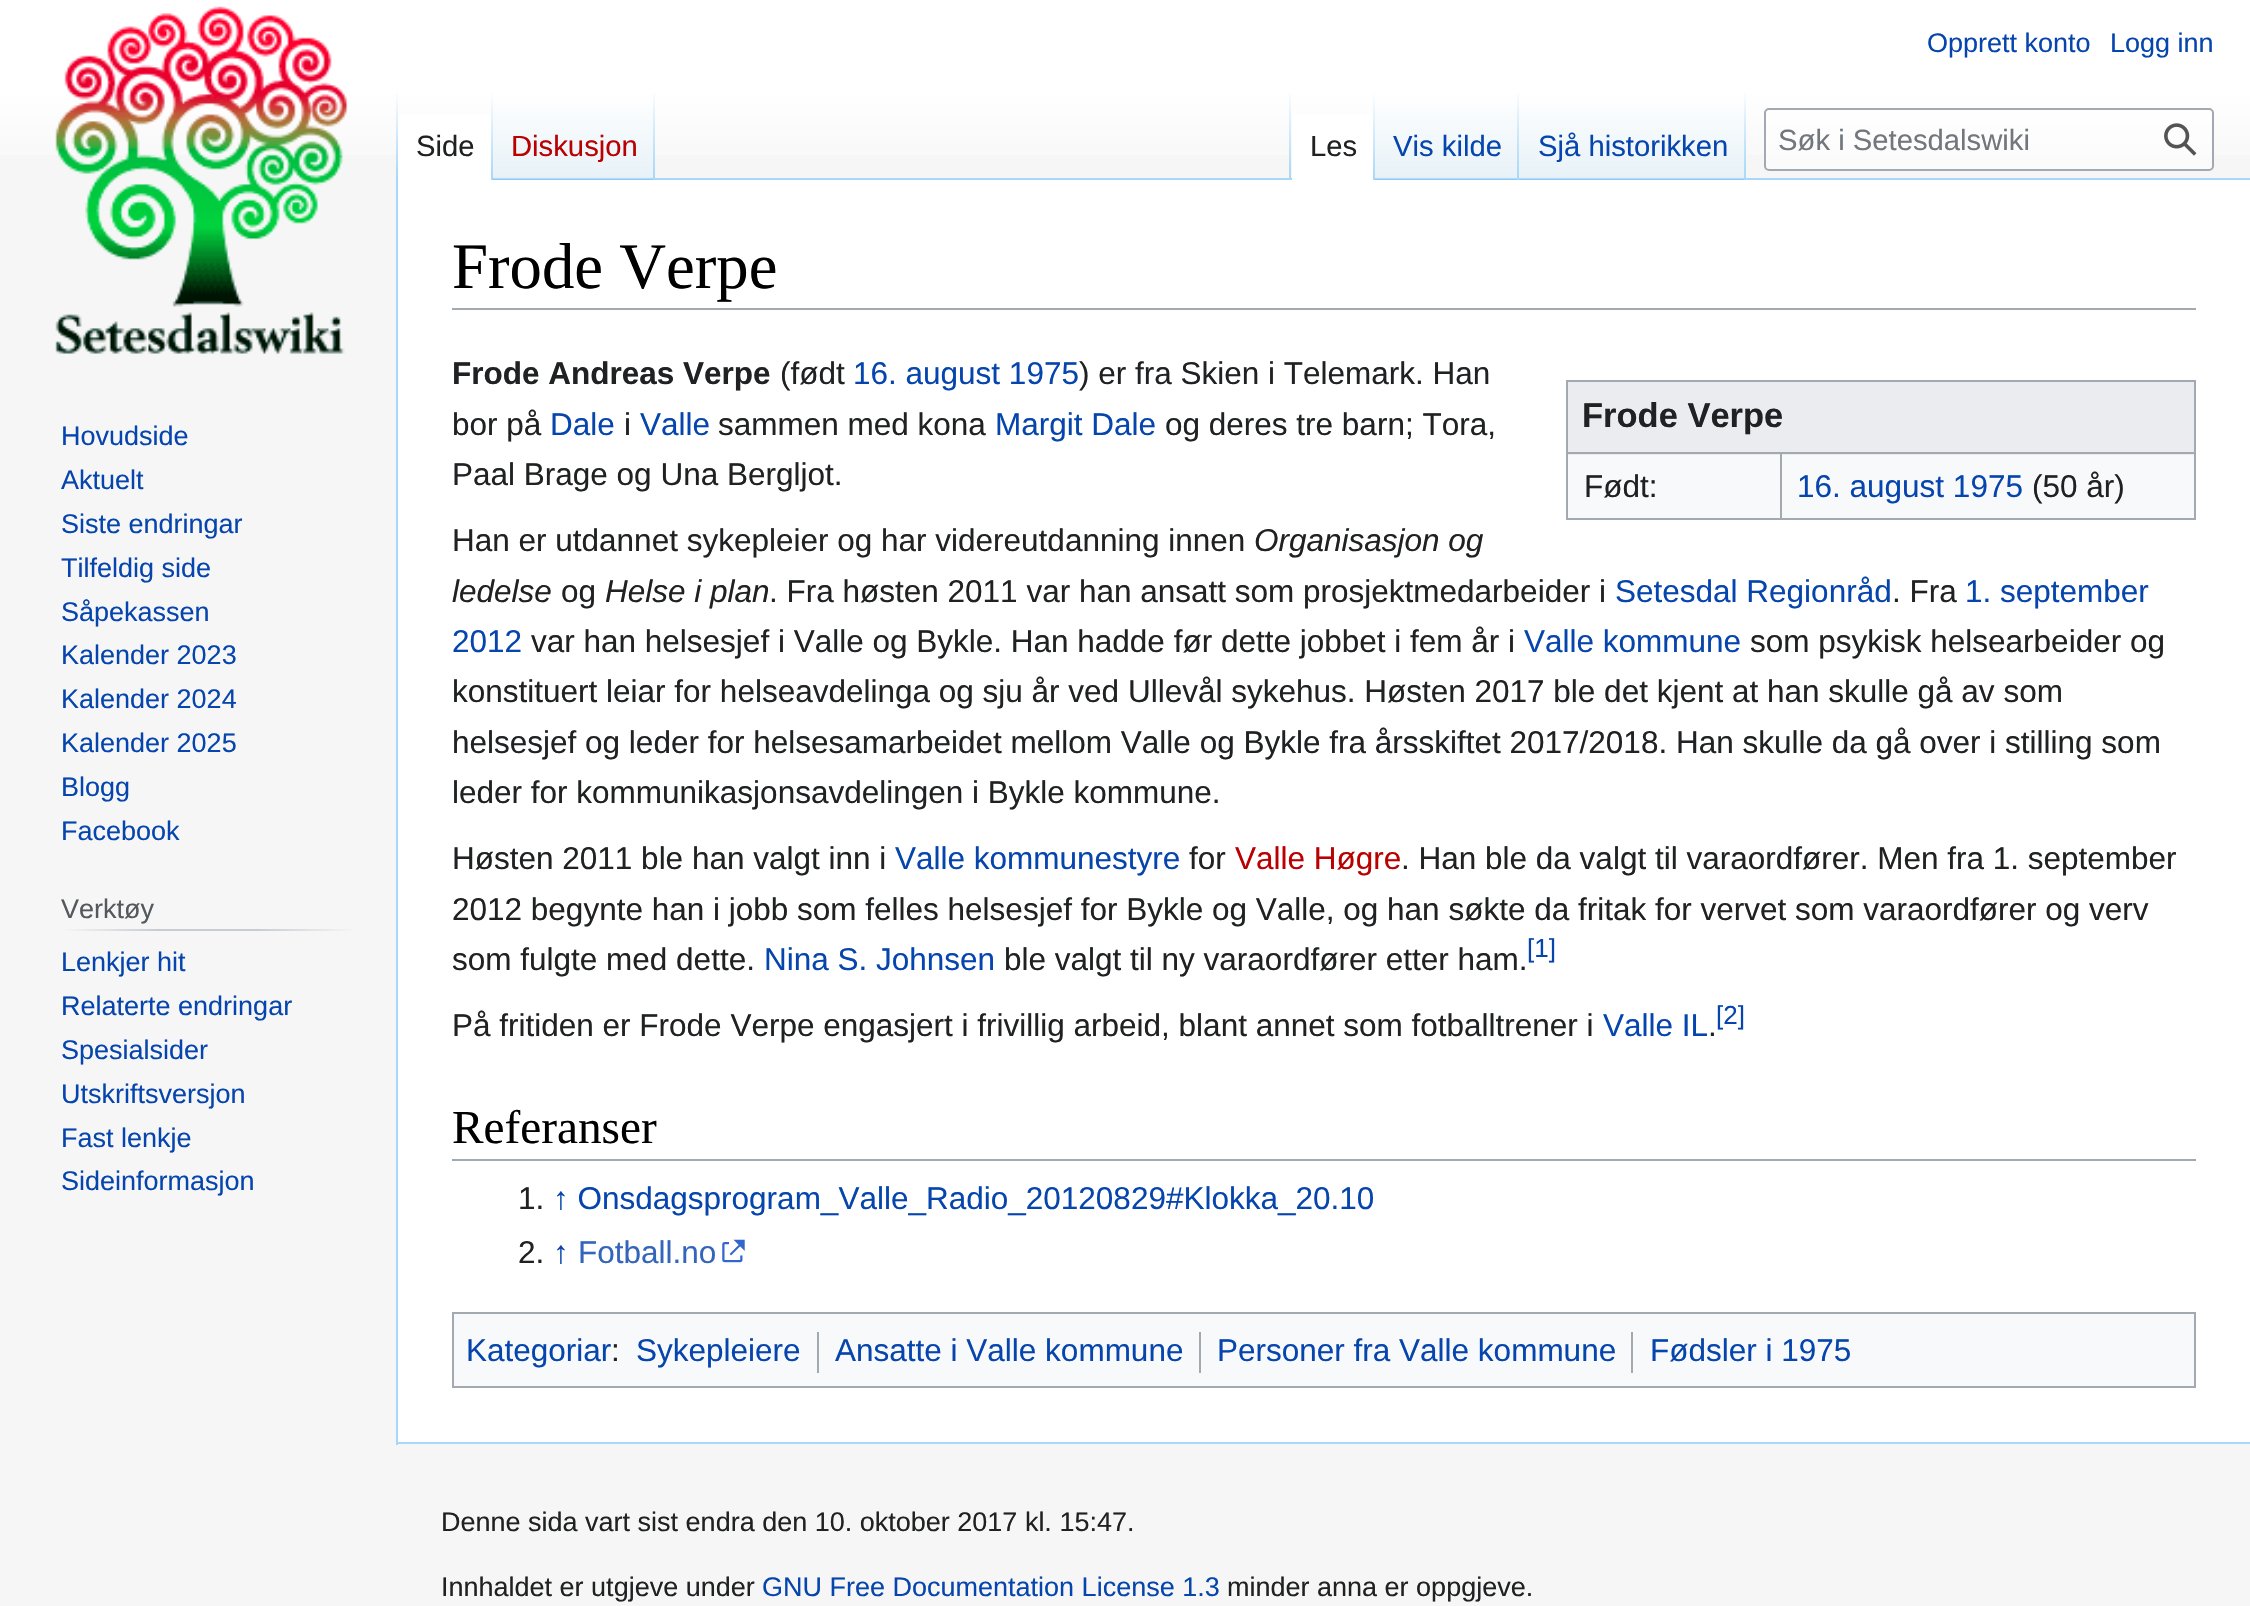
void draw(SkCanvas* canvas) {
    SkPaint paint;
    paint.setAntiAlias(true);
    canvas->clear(0xFFF6F6F6);
    {
        const SkColor colors[] = {0xFFFFFFFF, 0xFFF6F6F6};
        const float stops[] = {0.5f, 1};
        const SkPoint ends[] = {{1125, 0}, {1125, 180}};
        paint.setShader(SkGradientShader::MakeLinear(ends, colors, stops, 2, SkTileMode::kClamp));
        paint.setAlpha(255);
    }
    canvas->drawRect(SkRect::MakeXYWH(0, 0, 2250, 155), paint);
    SkFont font1(fontMgr->matchFamilyStyle("Liberation Sans", SkFontStyle::Normal()), 27);
    font1.setSubpixel(true);
    paint.setShader(nullptr);
    paint.setColor(0xFF0645AD);
    canvas->drawString("Opprett konto", 1927, 52, font1, paint);
    canvas->drawString("Logg inn", 2110, 52, font1, paint);
    paint.setColor(0xFFA7D7F9);
    canvas->drawRect(SkRect::MakeXYWH(396, 1442, 1854, 2), paint);
    canvas->drawRect(SkRect::MakeXYWH(396, 178, 2, 1267), paint);
    {
        const SkColor colors[] = {0x00A7D7F9, 0xFFA7D7F9};
        const float stops[] = {0, 1};
        const SkPoint ends[] = {{397, 90}, {397, 180}};
        paint.setShader(SkGradientShader::MakeLinear(ends, colors, stops, 2, SkTileMode::kClamp));
        paint.setAlpha(255);
    }
    canvas->drawRect(SkRect::MakeXYWH(396, 90, 2, 90), paint);
    paint.setShader(nullptr);
    paint.setColor(0xFFFFFFFF);
    canvas->drawRect(SkRect::MakeXYWH(398, 115, 93, 65), paint);
    {
        const SkColor colors[] = {0xFFFFFFFF, 0xFFA7D7F9};
        const float stops[] = {0, 1};
        const SkPoint ends[] = {{492, 90}, {492, 180}};
        paint.setShader(SkGradientShader::MakeLinear(ends, colors, stops, 2, SkTileMode::kClamp));
        paint.setAlpha(255);
    }
    canvas->drawRect(SkRect::MakeXYWH(491, 90, 2, 90), paint);
    SkFont font2(fontMgr->matchFamilyStyle("Liberation Sans", SkFontStyle::Normal()), 29.25f);
    font2.setSubpixel(true);
    paint.setShader(nullptr);
    paint.setColor(0xFF202122);
    canvas->drawString("Side", 416, 156, font2, paint);
    {
        const SkColor colors[] = {0xFF77C1F6, 0xFFE8F2F8, 0xFFFFFFFF};
        const float stops[] = {0, 0.03f, 1};
        const SkPoint ends[] = {{574, 180}, {574, 90}};
        paint.setShader(SkGradientShader::MakeLinear(ends, colors, stops, 3, SkTileMode::kClamp));
        paint.setAlpha(255);
    }
    canvas->drawRect(SkRect::MakeXYWH(493, 103, 162, 77), paint);
    {
        const SkColor colors[] = {0x00A7D7F9, 0xFFA7D7F9};
        const float stops[] = {0, 1};
        const SkPoint ends[] = {{654, 90}, {654, 180}};
        paint.setShader(SkGradientShader::MakeLinear(ends, colors, stops, 2, SkTileMode::kClamp));
        paint.setAlpha(255);
    }
    canvas->drawRect(SkRect::MakeXYWH(653, 90, 2, 90), paint);
    paint.setShader(nullptr);
    paint.setColor(0xFFBA0000);
    canvas->drawString("Diskusjon", 511, 156, font2, paint);
    paint.setColor(0xFFA7D7F9);
    canvas->drawRect(SkRect::MakeXYWH(655, 178, 1595, 2), paint);
    {
        const SkColor colors[] = {0x00A7D7F9, 0xFFA7D7F9};
        const float stops[] = {0, 1};
        const SkPoint ends[] = {{1290, 90}, {1290, 180}};
        paint.setShader(SkGradientShader::MakeLinear(ends, colors, stops, 2, SkTileMode::kClamp));
        paint.setAlpha(255);
    }
    canvas->drawRect(SkRect::MakeXYWH(1289, 90, 2, 90), paint);
    paint.setShader(nullptr);
    paint.setColor(0xFFFFFFFF);
    canvas->drawRect(SkRect::MakeXYWH(1292, 115, 81, 65), paint);
    {
        const SkColor colors[] = {0xFFFFFFFF, 0xFFA7D7F9};
        const float stops[] = {0, 1};
        const SkPoint ends[] = {{1374, 90}, {1374, 180}};
        paint.setShader(SkGradientShader::MakeLinear(ends, colors, stops, 2, SkTileMode::kClamp));
        paint.setAlpha(255);
    }
    canvas->drawRect(SkRect::MakeXYWH(1373, 90, 2, 90), paint);
    paint.setShader(nullptr);
    paint.setColor(0xFF202122);
    canvas->drawString("Les", 1310, 156, font2, paint);
    {
        const SkColor colors[] = {0xFF77C1F6, 0xFFE8F2F8, 0xFFFFFFFF};
        const float stops[] = {0, 0.03f, 1};
        const SkPoint ends[] = {{1447, 180}, {1447, 90}};
        paint.setShader(SkGradientShader::MakeLinear(ends, colors, stops, 3, SkTileMode::kClamp));
        paint.setAlpha(255);
    }
    canvas->drawRect(SkRect::MakeXYWH(1375, 103, 144, 77), paint);
    {
        const SkColor colors[] = {0x00A7D7F9, 0xFFA7D7F9};
        const float stops[] = {0, 1};
        const SkPoint ends[] = {{1518, 90}, {1518, 180}};
        paint.setShader(SkGradientShader::MakeLinear(ends, colors, stops, 2, SkTileMode::kClamp));
        paint.setAlpha(255);
    }
    canvas->drawRect(SkRect::MakeXYWH(1517, 90, 2, 90), paint);
    paint.setShader(nullptr);
    paint.setColor(0xFF0645AD);
    canvas->drawString("Vis kilde", 1393, 156, font2, paint);
    {
        const SkColor colors[] = {0xFF77C1F6, 0xFFE8F2F8, 0xFFFFFFFF};
        const float stops[] = {0, 0.03f, 1};
        const SkPoint ends[] = {{1632, 180}, {1632, 90}};
        paint.setShader(SkGradientShader::MakeLinear(ends, colors, stops, 3, SkTileMode::kClamp));
        paint.setAlpha(255);
    }
    canvas->drawRect(SkRect::MakeXYWH(1519, 103, 227, 77), paint);
    {
        const SkColor colors[] = {0x00A7D7F9, 0xFFA7D7F9};
        const float stops[] = {0, 1};
        const SkPoint ends[] = {{1745, 90}, {1745, 180}};
        paint.setShader(SkGradientShader::MakeLinear(ends, colors, stops, 2, SkTileMode::kClamp));
        paint.setAlpha(255);
    }
    canvas->drawRect(SkRect::MakeXYWH(1744, 90, 2, 90), paint);
    paint.setShader(nullptr);
    paint.setColor(0xFF0645AD);
    canvas->drawString("Sjå historikken", 1538, 156, font2, paint);
    paint.setColor(0x80FFFFFF);
    canvas->drawRoundRect(SkRect::MakeXYWH(1765, 109, 448, 61), 4, 4, paint);
    paint.setStyle(SkPaint::kStroke_Style);
    paint.setStrokeWidth(2);
    paint.setColor(0xFFA2A9B1);
    canvas->drawRoundRect(SkRect::MakeXYWH(1765, 109, 448, 61), 4, 4, paint);
    paint.setStyle(SkPaint::kFill_Style);
    paint.setColor(0xFF72777D);
    canvas->drawString("Søk i Setesdalswiki", 1778, 150, font2, paint);
    canvas->drawImageRect(SkImages::DeferredFromEncodedData(SkData::MakeFromFileName("img1.png")), SkRect::MakeXYWH(2164, 123, 33, 33), SkSamplingOptions());
    canvas->drawImageRect(SkImages::DeferredFromEncodedData(SkData::MakeFromFileName("img2.png")), SkRect::MakeXYWH(55, 6, 293, 348), SkSamplingOptions());
    paint.setColor(0xFF0645AD);
    canvas->drawString("Hovudside", 61, 445, font1, paint);
    canvas->drawString("Aktuelt", 61, 489, font1, paint);
    canvas->drawString("Siste endringar", 61, 533, font1, paint);
    canvas->drawString("Tilfeldig side", 61, 577, font1, paint);
    canvas->drawString("Såpekassen", 61, 621, font1, paint);
    canvas->drawString("Kalender 2023", 61, 664, font1, paint);
    canvas->drawString("Kalender 2024", 61, 708, font1, paint);
    canvas->drawString("Kalender 2025", 61, 752, font1, paint);
    canvas->drawString("Blogg", 61, 796, font1, paint);
    canvas->drawString("Facebook", 61, 840, font1, paint);
    {
        const SkColor colors[] = {0xFFF6F6F6, 0xFFC8CCD1, 0xFFC8CCD1, 0xFFF6F6F6};
        const float stops[] = {0, 0.33f, 0.66f, 1};
        const SkPoint ends[] = {{61, 930}, {356, 930}};
        paint.setShader(SkGradientShader::MakeLinear(ends, colors, stops, 4, SkTileMode::kClamp));
        paint.setAlpha(255);
    }
    canvas->drawRect(SkRect::MakeXYWH(61, 929, 295, 2), paint);
    paint.setShader(nullptr);
    paint.setColor(0xFF54595D);
    canvas->drawString("Verktøy", 61, 918, font1, paint);
    paint.setColor(0xFF0645AD);
    canvas->drawString("Lenkjer hit", 61, 971, font1, paint);
    canvas->drawString("Relaterte endringar", 61, 1015, font1, paint);
    canvas->drawString("Spesialsider", 61, 1059, font1, paint);
    canvas->drawString("Utskriftsversjon", 61, 1103, font1, paint);
    canvas->drawString("Fast lenkje", 61, 1147, font1, paint);
    canvas->drawString("Sideinformasjon", 61, 1190, font1, paint);
    paint.setColor(0xFFFFFFFF);
    canvas->drawRect(SkRect::MakeXYWH(398, 180, 1852, 1262), paint);
    paint.setColor(0xFFA2A9B1);
    canvas->drawRect(SkRect::MakeXYWH(452, 308, 1744, 2), paint);
    SkFont font3(fontMgr->matchFamilyStyle("Liberation Serif", SkFontStyle::Normal()), 64.75f);
    font3.setSubpixel(true);
    paint.setColor(0xFF000000);
    canvas->drawString("Frode Verpe", 452, 288, font3, paint);
    SkFont font4(fontMgr->matchFamilyStyle("Liberation Sans", SkFontStyle::Bold()), 31.5f);
    font4.setSubpixel(true);
    paint.setColor(0xFF202122);
    canvas->drawString("Frode Andreas Verpe", 452, 384, font4, paint);
    SkFont font5(fontMgr->matchFamilyStyle("Liberation Sans", SkFontStyle::Normal()), 31.5f);
    font5.setSubpixel(true);
    canvas->drawString("(født", 780, 384, font5, paint);
    paint.setColor(0xFF0645AD);
    canvas->drawString("16. august 1975", 853, 384, font5, paint);
    paint.setColor(0xFF202122);
    canvas->drawString(") er fra Skien i Telemark. Han", 1079, 384, font5, paint);
    canvas->drawString("bor på", 452, 435, font5, paint);
    paint.setColor(0xFF0645AD);
    canvas->drawString("Dale", 550, 435, font5, paint);
    paint.setColor(0xFF202122);
    canvas->drawString("i", 624, 435, font5, paint);
    paint.setColor(0xFF0645AD);
    canvas->drawString("Valle", 640, 435, font5, paint);
    paint.setColor(0xFF202122);
    canvas->drawString("sammen med kona", 718, 435, font5, paint);
    paint.setColor(0xFF0645AD);
    canvas->drawString("Margit Dale", 995, 435, font5, paint);
    paint.setColor(0xFF202122);
    canvas->drawString("og deres tre barn; Tora,", 1165, 435, font5, paint);
    canvas->drawString("Paal Brage og Una Bergljot.", 452, 485, font5, paint);
    paint.setColor(0xFFF8F9FA);
    canvas->drawRect(SkRect::MakeXYWH(1568, 455, 626, 63), paint);
    paint.setColor(0xFFA2A9B1);
    canvas->drawRect(SkRect::MakeXYWH(1566, 380, 630, 2), paint);
    canvas->drawRect(SkRect::MakeXYWH(2194, 380, 2, 140), paint);
    canvas->drawRect(SkRect::MakeXYWH(1566, 518, 630, 2), paint);
    canvas->drawRect(SkRect::MakeXYWH(1566, 380, 2, 140), paint);
    paint.setColor(0xFFEAECF0);
    canvas->drawRect(SkRect::MakeXYWH(1568, 382, 626, 73), paint);
    SkFont font6(fontMgr->matchFamilyStyle("Liberation Sans", SkFontStyle::Bold()), 34.5f);
    font6.setSubpixel(true);
    paint.setColor(0xFF202122);
    canvas->drawString("Frode Verpe", 1582, 427, font6, paint);
    paint.setColor(0xFFA2A9B1);
    canvas->drawRect(SkRect::MakeXYWH(1780, 452, 416, 2), paint);
    canvas->drawRect(SkRect::MakeXYWH(1780, 452, 2, 68), paint);
    canvas->drawRect(SkRect::MakeXYWH(1566, 452, 216, 2), paint);
    paint.setColor(0xFF202122);
    canvas->drawString("Født:", 1584, 497, font5, paint);
    paint.setColor(0xFF0645AD);
    canvas->drawString("16. august 1975", 1797, 497, font5, paint);
    paint.setColor(0xFF202122);
    canvas->drawString("(50 år)", 2032, 497, font5, paint);
    canvas->drawString("Han er utdannet sykepleier og har videreutdanning innen", 452, 551, font5, paint);
    SkFont font7(fontMgr->matchFamilyStyle("Liberation Sans", SkFontStyle::Italic()), 31.5f);
    font7.setSubpixel(true);
    canvas->drawString("Organisasjon og", 1254, 551, font7, paint);
    canvas->drawString("ledelse", 452, 602, font7, paint);
    canvas->drawString("og", 561, 602, font5, paint);
    canvas->drawString("Helse i plan", 605, 602, font7, paint);
    canvas->drawString(". Fra høsten 2011 var han ansatt som prosjektmedarbeider i", 769, 602, font5, paint);
    paint.setColor(0xFF0645AD);
    canvas->drawString("Setesdal Regionråd", 1615, 602, font5, paint);
    paint.setColor(0xFF202122);
    canvas->drawString(". Fra", 1892, 602, font5, paint);
    paint.setColor(0xFF0645AD);
    canvas->drawString("1. september", 1965, 602, font5, paint);
    canvas->drawString("2012", 452, 652, font5, paint);
    paint.setColor(0xFF202122);
    canvas->drawString("var han helsesjef i Valle og Bykle. Han hadde før dette jobbet i fem år i", 531, 652, font5, paint);
    paint.setColor(0xFF0645AD);
    canvas->drawString("Valle kommune", 1524, 652, font5, paint);
    paint.setColor(0xFF202122);
    canvas->drawString("som psykisk helsearbeider og", 1750, 652, font5, paint);
    canvas->drawString("konstituert leiar for helseavdelinga og sju år ved Ullevål sykehus. Høsten 2017 ble det kjent at han skulle gå av som", 452, 702, font5, paint);
    canvas->drawString("helsesjef og leder for helsesamarbeidet mellom Valle og Bykle fra årsskiftet 2017/2018. Han skulle da gå over i stilling som", 452, 753, font5, paint);
    canvas->drawString("leder for kommunikasjonsavdelingen i Bykle kommune.", 452, 803, font5, paint);
    canvas->drawString("Høsten 2011 ble han valgt inn i", 452, 869, font5, paint);
    paint.setColor(0xFF0645AD);
    canvas->drawString("Valle kommunestyre", 895, 869, font5, paint);
    paint.setColor(0xFF202122);
    canvas->drawString("for", 1189, 869, font5, paint);
    paint.setColor(0xFFBA0000);
    canvas->drawString("Valle Høgre", 1235, 869, font5, paint);
    paint.setColor(0xFF202122);
    canvas->drawString(". Han ble da valgt til varaordfører. Men fra 1. september", 1401, 869, font5, paint);
    canvas->drawString("2012 begynte han i jobb som felles helsesjef for Bykle og Valle, og han søkte da fritak for vervet som varaordfører og verv", 452, 920, font5, paint);
    canvas->drawString("som fulgte med dette.", 452, 970, font5, paint);
    paint.setColor(0xFF0645AD);
    canvas->drawString("Nina S. Johnsen", 764, 970, font5, paint);
    paint.setColor(0xFF202122);
    canvas->drawString("ble valgt til ny varaordfører etter ham.", 1004, 970, font5, paint);
    SkFont font8(fontMgr->matchFamilyStyle("Liberation Sans", SkFontStyle::Normal()), 26);
    font8.setSubpixel(true);
    paint.setColor(0xFF0645AD);
    canvas->drawString("[1]", 1527, 957, font8, paint);
    paint.setColor(0xFF202122);
    canvas->drawString("På fritiden er Frode Verpe engasjert i frivillig arbeid, blant annet som fotballtrener i", 452, 1036, font5, paint);
    paint.setColor(0xFF0645AD);
    canvas->drawString("Valle IL", 1603, 1036, font5, paint);
    paint.setColor(0xFF202122);
    canvas->drawString(".", 1708, 1036, font5, paint);
    paint.setColor(0xFF0645AD);
    canvas->drawString("[2]", 1716, 1024, font8, paint);
    paint.setColor(0xFFA2A9B1);
    canvas->drawRect(SkRect::MakeXYWH(452, 1159, 1744, 2), paint);
    SkFont font9(fontMgr->matchFamilyStyle("Liberation Serif", SkFontStyle::Normal()), 47.25f);
    font9.setSubpixel(true);
    paint.setColor(0xFF000000);
    canvas->drawString("Referanser", 452, 1143, font9, paint);
    paint.setColor(0xFF202122);
    canvas->drawString("1.", 518, 1209, font5, paint);
    paint.setColor(0xFF0645AD);
    canvas->drawString("↑ Onsdagsprogram_Valle_Radio_20120829#Klokka_20.10", 553, 1209, font5, paint);
    paint.setColor(0xFF202122);
    canvas->drawString("2.", 518, 1263, font5, paint);
    paint.setColor(0xFF0645AD);
    canvas->drawString("↑", 553, 1263, font5, paint);
    paint.setColor(0xFF3366BB);
    canvas->drawString("Fotball.no", 578, 1263, font5, paint);
    canvas->drawImageRect(SkImages::DeferredFromEncodedData(SkData::MakeFromFileName("img3.png")), SkRect::MakeXYWH(722, 1239, 23, 24), SkSamplingOptions());
    paint.setColor(0xFFF8F9FA);
    canvas->drawRect(SkRect::MakeXYWH(453, 1313, 1742, 74), paint);
    paint.setStyle(SkPaint::kStroke_Style);
    paint.setColor(0xFFA2A9B1);
    canvas->drawRect(SkRect::MakeXYWH(453, 1313, 1742, 74), paint);
    paint.setStyle(SkPaint::kFill_Style);
    paint.setColor(0xFF0645AD);
    canvas->drawString("Kategoriar", 466, 1361, font5, paint);
    paint.setColor(0xFF202122);
    canvas->drawString(":", 611, 1361, font5, paint);
    paint.setColor(0xFF0645AD);
    canvas->drawString("Sykepleiere", 636, 1361, font5, paint);
    paint.setColor(0xFFA2A9B1);
    canvas->drawRect(SkRect::MakeXYWH(817, 1332, 2, 41), paint);
    paint.setColor(0xFF0645AD);
    canvas->drawString("Ansatte i Valle kommune", 835, 1361, font5, paint);
    paint.setColor(0xFFA2A9B1);
    canvas->drawRect(SkRect::MakeXYWH(1199, 1332, 2, 41), paint);
    paint.setColor(0xFF0645AD);
    canvas->drawString("Personer fra Valle kommune", 1217, 1361, font5, paint);
    paint.setColor(0xFFA2A9B1);
    canvas->drawRect(SkRect::MakeXYWH(1631, 1332, 2, 41), paint);
    paint.setColor(0xFF0645AD);
    canvas->drawString("Fødsler i 1975", 1650, 1361, font5, paint);
    paint.setColor(0xFF202122);
    canvas->drawString("Denne sida vart sist endra den 10. oktober 2017 kl. 15:47.", 441, 1531, font1, paint);
    canvas->drawString("Innhaldet er utgjeve under", 441, 1596, font1, paint);
    paint.setColor(0xFF0645AD);
    canvas->drawString("GNU Free Documentation License 1.3", 762, 1596, font1, paint);
    paint.setColor(0xFF202122);
    canvas->drawString("minder anna er oppgjeve.", 1227, 1596, font1, paint);
}
